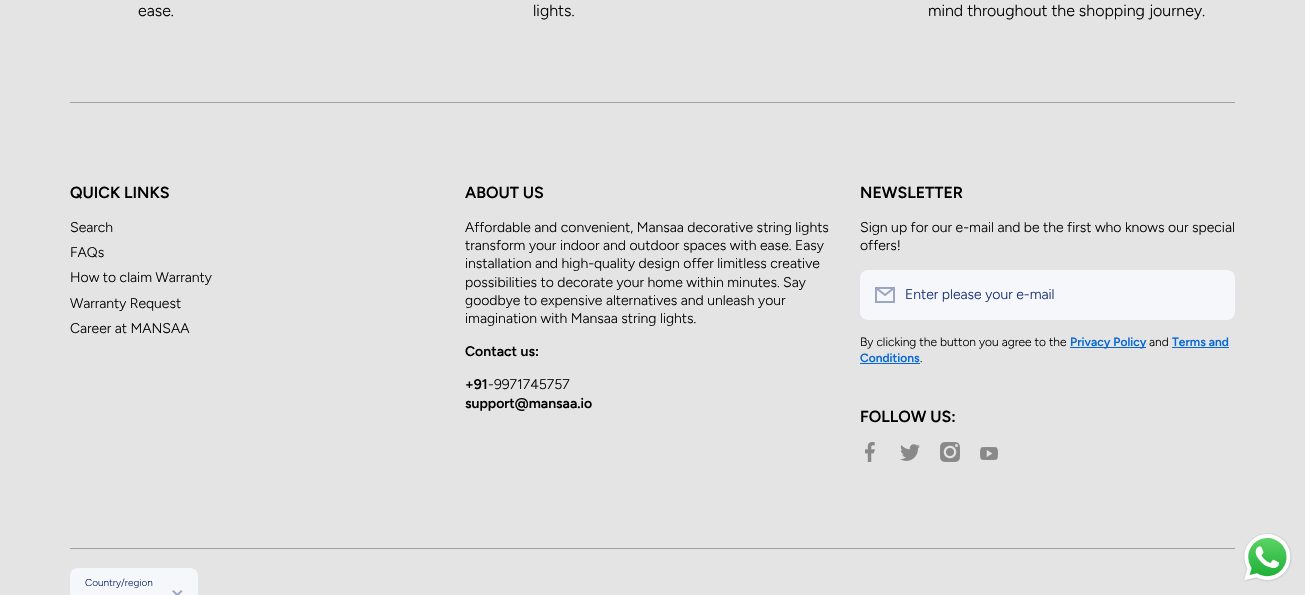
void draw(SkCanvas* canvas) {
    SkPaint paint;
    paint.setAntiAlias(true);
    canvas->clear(0xFFE4E4E4);
    SkFont font1(fontMgr->matchFamilyStyle("Figtree", SkFontStyle(300, SkFontStyle::kNormal_Width, SkFontStyle::kUpright_Slant)), 16);
    font1.setSubpixel(true);
    paint.setColor(0xFF000000);
    canvas->drawString("ease.", 138, 16, font1, paint);
    canvas->drawString("lights.", 533, 16, font1, paint);
    canvas->drawString("mind throughout the shopping journey.", 928, 16, font1, paint);
    paint.setColor(0xFFA0A0A0);
    canvas->drawRect(SkRect::MakeXYWH(70, 102, 1165, 1), paint);
    SkFont font2(fontMgr->matchFamilyStyle("Figtree", SkFontStyle(600, SkFontStyle::kNormal_Width, SkFontStyle::kUpright_Slant)), 16);
    font2.setSubpixel(true);
    paint.setColor(0xFF000000);
    canvas->drawString("QUICK LINKS", 70, 198, font2, paint);
    SkFont font3(fontMgr->matchFamilyStyle("Figtree", SkFontStyle(300, SkFontStyle::kNormal_Width, SkFontStyle::kUpright_Slant)), 14);
    font3.setSubpixel(true);
    canvas->drawString("Search", 70, 232, font3, paint);
    canvas->drawString("FAQs", 70, 257, font3, paint);
    canvas->drawString("How to claim Warranty", 70, 282, font3, paint);
    canvas->drawString("Warranty Request", 70, 308, font3, paint);
    canvas->drawString("Career at MANSAA", 70, 333, font3, paint);
    canvas->drawString("ABOUT US", 465, 198, font2, paint);
    canvas->drawString("Affordable and convenient, Mansaa decorative string lights", 465, 232, font3, paint);
    canvas->drawString("transform your indoor and outdoor spaces with ease. Easy", 465, 250, font3, paint);
    canvas->drawString("installation and high-quality design offer limitless creative", 465, 268, font3, paint);
    canvas->drawString("possibilities to decorate your home within minutes. Say", 465, 287, font3, paint);
    canvas->drawString("goodbye to expensive alternatives and unleash your", 465, 305, font3, paint);
    canvas->drawString("imagination with Mansaa string lights.", 465, 323, font3, paint);
    SkFont font4(fontMgr->matchFamilyStyle("Figtree", SkFontStyle(600, SkFontStyle::kNormal_Width, SkFontStyle::kUpright_Slant)), 14);
    font4.setSubpixel(true);
    canvas->drawString("Contact us:", 465, 356, font4, paint);
    canvas->drawString("+91", 465, 389, font4, paint);
    canvas->drawString("-9971745757", 488, 389, font3, paint);
    canvas->drawString("support@mansaa.io", 465, 408, font4, paint);
    canvas->drawString("NEWSLETTER", 860, 198, font2, paint);
    canvas->drawString("Sign up for our e-mail and be the first who knows our special", 860, 232, font3, paint);
    canvas->drawString("offers!", 860, 250, font3, paint);
    paint.setColor(0xFFF6F7FA);
    canvas->drawRoundRect(SkRect::MakeXYWH(860, 270, 375, 50), 8, 8, paint);
    canvas->drawImageRect(SkImages::DeferredFromEncodedData(SkData::MakeFromFileName("img1.png")), SkRect::MakeXYWH(875, 287, 20, 16), SkSamplingOptions());
    paint.setColor(0xFF142C73);
    canvas->drawString("Enter please your e-mail", 905, 299, font3, paint);
    SkFont font5(fontMgr->matchFamilyStyle("Figtree", SkFontStyle(300, SkFontStyle::kNormal_Width, SkFontStyle::kUpright_Slant)), 12);
    font5.setSubpixel(true);
    paint.setColor(0xFF000000);
    canvas->drawString("By clicking the button you agree to the", 860, 346, font5, paint);
    paint.setColor(0xFF0568D6);
    canvas->drawRect(SkRect::MakeXYWH(1070, 347, 76, 1), paint);
    SkFont font6(fontMgr->matchFamilyStyle("Figtree", SkFontStyle(600, SkFontStyle::kNormal_Width, SkFontStyle::kUpright_Slant)), 12);
    font6.setSubpixel(true);
    canvas->drawString("Privacy Policy", 1070, 346, font6, paint);
    paint.setColor(0xFF000000);
    canvas->drawString("and", 1149, 346, font5, paint);
    paint.setColor(0xFF0568D6);
    canvas->drawString("Terms and", 1172, 346, font6, paint);
    canvas->drawRect(SkRect::MakeXYWH(1172, 347, 57, 1), paint);
    canvas->drawString("Conditions", 860, 362, font6, paint);
    canvas->drawRect(SkRect::MakeXYWH(860, 363, 60, 1), paint);
    paint.setColor(0xFF000000);
    canvas->drawString(".", 920, 362, font5, paint);
    canvas->drawString("FOLLOW US:", 860, 422, font2, paint);
    canvas->drawImageRect(SkImages::DeferredFromEncodedData(SkData::MakeFromFileName("img2.png")), SkRect::MakeXYWH(865, 442, 10, 20), SkSamplingOptions());
    canvas->drawImageRect(SkImages::DeferredFromEncodedData(SkData::MakeFromFileName("img3.png")), SkRect::MakeXYWH(900, 444, 20, 17), SkSamplingOptions());
    canvas->drawImageRect(SkImages::DeferredFromEncodedData(SkData::MakeFromFileName("img4.png")), SkRect::MakeXYWH(940, 442, 20, 20), SkSamplingOptions());
    canvas->drawImageRect(SkImages::DeferredFromEncodedData(SkData::MakeFromFileName("img5.png")), SkRect::MakeXYWH(980, 447, 18, 13), SkSamplingOptions());
    paint.setColor(0xFFA0A0A0);
    canvas->drawRect(SkRect::MakeXYWH(70, 548, 1165, 1), paint);
    paint.setColor(0xFFF6F7FA);
    canvas->drawRoundRect(SkRect::MakeXYWH(70, 568, 128, 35), 8, 8, paint);
    SkFont font7(fontMgr->matchFamilyStyle("Figtree", SkFontStyle(300, SkFontStyle::kNormal_Width, SkFontStyle::kUpright_Slant)), 10);
    font7.setSubpixel(true);
    paint.setColor(0xFF142C73);
    canvas->drawString("Country/region", 85, 586, font7, paint);
    canvas->drawImageRect(SkImages::DeferredFromEncodedData(SkData::MakeFromFileName("img6.png")), SkRect::MakeXYWH(172, 590, 11, 5), SkSamplingOptions());
    canvas->drawImageRect(SkImages::DeferredFromEncodedData(SkData::MakeFromFileName("img7.png")), SkRect::MakeXYWH(1243, 533, 49, 49), SkSamplingOptions());
}
